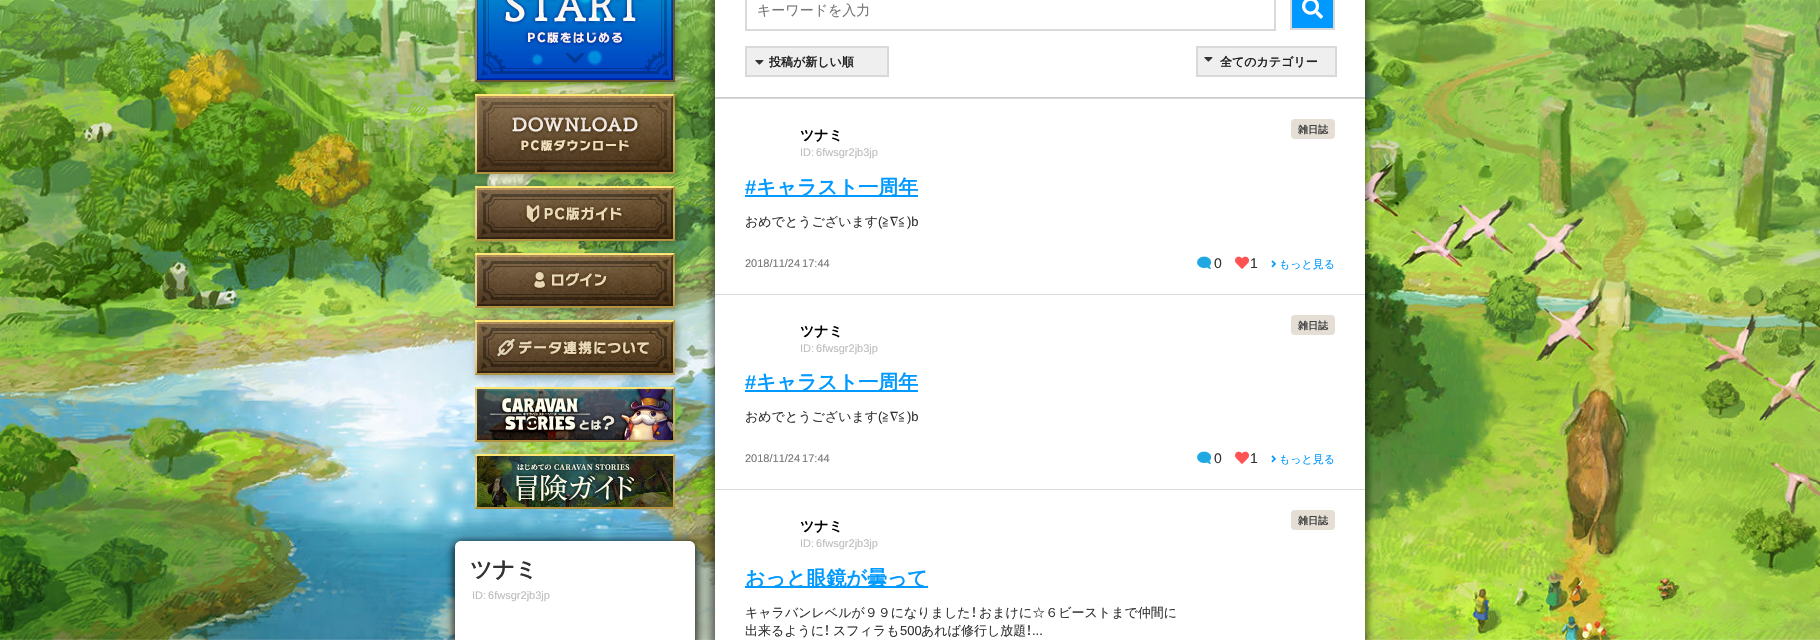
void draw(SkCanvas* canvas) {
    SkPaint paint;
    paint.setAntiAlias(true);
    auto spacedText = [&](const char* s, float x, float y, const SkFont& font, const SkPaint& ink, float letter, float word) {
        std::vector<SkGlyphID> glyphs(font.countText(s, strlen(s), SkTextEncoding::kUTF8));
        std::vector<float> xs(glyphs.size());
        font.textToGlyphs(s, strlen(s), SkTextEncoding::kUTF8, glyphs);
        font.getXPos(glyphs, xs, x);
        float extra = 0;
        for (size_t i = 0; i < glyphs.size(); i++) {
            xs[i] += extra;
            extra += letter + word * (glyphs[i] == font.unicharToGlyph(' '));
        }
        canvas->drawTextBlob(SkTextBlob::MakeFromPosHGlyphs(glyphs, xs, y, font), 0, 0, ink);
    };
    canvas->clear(0xFFFFFFFF);
    canvas->drawImageRect(SkImages::DeferredFromEncodedData(SkData::MakeFromFileName("img1.png")), SkRect::MakeXYWH(0, 0, 1820, 640), SkSamplingOptions());
    paint.setColor(0x4D000000);
    paint.setMaskFilter(SkMaskFilter::MakeBlur(kNormal_SkBlurStyle, 3.5f));
    canvas->drawRect(SkRect::MakeXYWH(477, -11, 200, 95), paint);
    paint.setMaskFilter(nullptr);
    canvas->drawImageRect(SkImages::DeferredFromEncodedData(SkData::MakeFromFileName("img2.png")), SkRect::MakeXYWH(475, 0, 200, 82), SkSamplingOptions());
    paint.setMaskFilter(SkMaskFilter::MakeBlur(kNormal_SkBlurStyle, 3.5f));
    canvas->drawRect(SkRect::MakeXYWH(477, 96, 200, 80), paint);
    paint.setMaskFilter(nullptr);
    canvas->drawImageRect(SkImages::DeferredFromEncodedData(SkData::MakeFromFileName("img3.png")), SkRect::MakeXYWH(475, 94, 200, 80), SkSamplingOptions());
    paint.setMaskFilter(SkMaskFilter::MakeBlur(kNormal_SkBlurStyle, 3.5f));
    canvas->drawRect(SkRect::MakeXYWH(477, 188, 200, 55), paint);
    paint.setMaskFilter(nullptr);
    canvas->drawImageRect(SkImages::DeferredFromEncodedData(SkData::MakeFromFileName("img4.png")), SkRect::MakeXYWH(475, 186, 200, 55), SkSamplingOptions());
    paint.setMaskFilter(SkMaskFilter::MakeBlur(kNormal_SkBlurStyle, 3.5f));
    canvas->drawRect(SkRect::MakeXYWH(477, 255, 200, 55), paint);
    paint.setMaskFilter(nullptr);
    canvas->drawImageRect(SkImages::DeferredFromEncodedData(SkData::MakeFromFileName("img5.png")), SkRect::MakeXYWH(475, 253, 200, 55), SkSamplingOptions());
    paint.setMaskFilter(SkMaskFilter::MakeBlur(kNormal_SkBlurStyle, 3.5f));
    canvas->drawRect(SkRect::MakeXYWH(477, 322, 200, 55), paint);
    paint.setMaskFilter(nullptr);
    canvas->drawImageRect(SkImages::DeferredFromEncodedData(SkData::MakeFromFileName("img6.png")), SkRect::MakeXYWH(475, 320, 200, 55), SkSamplingOptions());
    canvas->drawImageRect(SkImages::DeferredFromEncodedData(SkData::MakeFromFileName("img7.png")), SkRect::MakeXYWH(475, 387, 200, 55), SkSamplingOptions());
    canvas->drawImageRect(SkImages::DeferredFromEncodedData(SkData::MakeFromFileName("img8.png")), SkRect::MakeXYWH(475, 454, 200, 55), SkSamplingOptions());
    paint.setColor(0x66000000);
    paint.setMaskFilter(SkMaskFilter::MakeBlur(kNormal_SkBlurStyle, 3));
    canvas->drawRoundRect(SkRect::MakeXYWH(455, 539, 240, 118), 8, 8, paint);
    paint.setMaskFilter(nullptr);
    paint.setMaskFilter(SkMaskFilter::MakeBlur(kNormal_SkBlurStyle, 3));
    canvas->drawRoundRect(SkRect::MakeXYWH(451, 544, 240, 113), 8, 8, paint);
    paint.setMaskFilter(nullptr);
    paint.setMaskFilter(SkMaskFilter::MakeBlur(kNormal_SkBlurStyle, 3));
    canvas->drawRoundRect(SkRect::MakeXYWH(459, 545, 240, 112), 8, 8, paint);
    paint.setMaskFilter(nullptr);
    paint.setColor(0xFFFFFFFF);
    canvas->drawPath(SkPathBuilder().moveTo(461, 541).lineTo(689, 541).cubicTo(692.5f, 541, 695, 543.5f, 695, 547).lineTo(695, 640).cubicTo(695, 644.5f, 691.5f, 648, 687, 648).lineTo(463, 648).cubicTo(458.5f, 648, 455, 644.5f, 455, 640).lineTo(455, 547).cubicTo(455, 543.5f, 457.5f, 541, 461, 541).close().detach(), paint);
    SkFont font1(fontMgr->matchFamilyStyle("WenQuanYi Zen Hei", SkFontStyle::Bold()), 22);
    font1.setSubpixel(true);
    paint.setColor(0xFF333333);
    canvas->drawString("ツナミ", 470, 577, font1, paint);
    SkFont font2(fontMgr->matchFamilyStyle("Liberation Sans", SkFontStyle::Normal()), 11);
    font2.setSubpixel(true);
    paint.setColor(0xFFBDBDBD);
    spacedText("ID: 6fwsgr2jb3jp", 472, 599, font2, paint, 0, -1);
    paint.setColor(0x66000000);
    paint.setMaskFilter(SkMaskFilter::MakeBlur(kNormal_SkBlurStyle, 3));
    canvas->drawRoundRect(SkRect::MakeXYWH(711, -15, 650, 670), 6, 6, paint);
    paint.setMaskFilter(nullptr);
    paint.setMaskFilter(SkMaskFilter::MakeBlur(kNormal_SkBlurStyle, 3));
    canvas->drawRoundRect(SkRect::MakeXYWH(719, -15, 650, 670), 6, 6, paint);
    paint.setMaskFilter(nullptr);
    paint.setColor(0xFFFFFFFF);
    canvas->drawRect(SkRect::MakeXYWH(715, 0, 650, 640), paint);
    paint.setStyle(SkPaint::kStroke_Style);
    paint.setStrokeWidth(2);
    paint.setColor(0xFFD9D9D9);
    canvas->drawRect(SkRect::MakeXYWH(746, -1, 529, 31), paint);
    SkFont font3(fontMgr->matchFamilyStyle("WenQuanYi Zen Hei", SkFontStyle(500, SkFontStyle::kNormal_Width, SkFontStyle::kUpright_Slant)), 14);
    font3.setSubpixel(true);
    paint.setStyle(SkPaint::kFill_Style);
    paint.setColor(0xFF757575);
    canvas->drawString("キーワードを入力", 757, 15, font3, paint);
    paint.setColor(0xFF0099FF);
    canvas->drawRect(SkRect::MakeXYWH(1291, -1, 43, 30), paint);
    paint.setStyle(SkPaint::kStroke_Style);
    paint.setColor(0xFFD9D9D9);
    canvas->drawRect(SkRect::MakeXYWH(1291, -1, 43, 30), paint);
    canvas->drawImageRect(SkImages::DeferredFromEncodedData(SkData::MakeFromFileName("img9.png")), SkRect::MakeXYWH(1302, 0, 21, 19), SkSamplingOptions());
    paint.setStyle(SkPaint::kFill_Style);
    paint.setColor(0xFFEFEFEF);
    canvas->drawRect(SkRect::MakeXYWH(746, 47, 142, 29), paint);
    paint.setStyle(SkPaint::kStroke_Style);
    paint.setColor(0xFFD9D9D9);
    canvas->drawRect(SkRect::MakeXYWH(746, 47, 142, 29), paint);
    canvas->drawImageRect(SkImages::DeferredFromEncodedData(SkData::MakeFromFileName("img10.png")), SkRect::MakeXYWH(755, 60, 9, 5), SkSamplingOptions());
    SkFont font4(fontMgr->matchFamilyStyle("WenQuanYi Zen Hei", SkFontStyle::Bold()), 12);
    font4.setSubpixel(true);
    paint.setStyle(SkPaint::kFill_Style);
    paint.setColor(0xFF222222);
    canvas->drawString("投稿が新しい順", 769, 66, font4, paint);
    paint.setColor(0xFFEFEFEF);
    canvas->drawRect(SkRect::MakeXYWH(1197, 47, 139, 29), paint);
    paint.setStyle(SkPaint::kStroke_Style);
    paint.setColor(0xFFD9D9D9);
    canvas->drawRect(SkRect::MakeXYWH(1197, 47, 139, 29), paint);
    canvas->drawImageRect(SkImages::DeferredFromEncodedData(SkData::MakeFromFileName("img10.png")), SkRect::MakeXYWH(1204, 57, 9, 5), SkSamplingOptions());
    paint.setStyle(SkPaint::kFill_Style);
    paint.setColor(0xFF222222);
    canvas->drawString("全てのカテゴリー", 1220, 66, font4, paint);
    paint.setColor(0xFFCCCCCC);
    canvas->drawRect(SkRect::MakeXYWH(715, 97, 650, 1), paint);
    paint.setColor(0xFFD9D9D9);
    canvas->drawRect(SkRect::MakeXYWH(715, 98, 650, 1), paint);
    SkFont font5(fontMgr->matchFamilyStyle("WenQuanYi Zen Hei", SkFontStyle::Bold()), 14);
    font5.setSubpixel(true);
    paint.setColor(0xFF000000);
    canvas->drawString("ツナミ", 800, 140, font5, paint);
    paint.setColor(0xFFBDBDBD);
    spacedText("ID: 6fwsgr2jb3jp", 800, 156, font2, paint, 0, -1);
    paint.setColor(0xFFE4DED5);
    canvas->drawRoundRect(SkRect::MakeXYWH(1291, 119, 44, 20), 4, 4, paint);
    SkFont font6(fontMgr->matchFamilyStyle("WenQuanYi Zen Hei", SkFontStyle::Bold()), 10);
    font6.setSubpixel(true);
    paint.setColor(0xFF444444);
    canvas->drawString("雑日誌", 1298, 133, font6, paint);
    SkFont font7(fontMgr->matchFamilyStyle("Liberation Sans", SkFontStyle::Bold()), 20);
    font7.setSubpixel(true);
    paint.setColor(0xFF0099FF);
    canvas->drawString("#", 745, 194, font7, paint);
    canvas->drawRect(SkRect::MakeXYWH(745, 195, 173, 2), paint);
    SkFont font8(fontMgr->matchFamilyStyle("WenQuanYi Zen Hei", SkFontStyle::Bold()), 20);
    font8.setSubpixel(true);
    canvas->drawString("キャラスト一周年", 756, 194, font8, paint);
    SkFont font9(fontMgr->matchFamilyStyle("WenQuanYi Zen Hei", SkFontStyle(500, SkFontStyle::kNormal_Width, SkFontStyle::kUpright_Slant)), 13);
    font9.setSubpixel(true);
    paint.setColor(0xFF333333);
    canvas->drawString("おめでとうございます", 745, 226, font9, paint);
    SkFont font10(fontMgr->matchFamilyStyle("Liberation Sans", SkFontStyle::Normal()), 13);
    font10.setSubpixel(true);
    canvas->drawString("(", 878, 226, font10, paint);
    canvas->drawString("≧∇≦", 882, 226, font9, paint);
    canvas->drawString(")b", 907, 226, font10, paint);
    paint.setColor(0xFF757575);
    spacedText("2018/11/24 17:44", 745, 267, font2, paint, 0, -1);
    canvas->drawImageRect(SkImages::DeferredFromEncodedData(SkData::MakeFromFileName("img11.png")), SkRect::MakeXYWH(1197, 256, 15, 13), SkSamplingOptions());
    SkFont font11(fontMgr->matchFamilyStyle("Liberation Sans", SkFontStyle::Normal()), 14);
    font11.setSubpixel(true);
    paint.setColor(0xFF333333);
    canvas->drawString("0", 1214, 268, font11, paint);
    canvas->drawImageRect(SkImages::DeferredFromEncodedData(SkData::MakeFromFileName("img12.png")), SkRect::MakeXYWH(1235, 256, 14, 13), SkSamplingOptions());
    canvas->drawString("1", 1250, 268, font11, paint);
    canvas->drawImageRect(SkImages::DeferredFromEncodedData(SkData::MakeFromFileName("img13.png")), SkRect::MakeXYWH(1271, 260, 5, 8), SkSamplingOptions());
    SkFont font12(fontMgr->matchFamilyStyle("WenQuanYi Zen Hei", SkFontStyle(500, SkFontStyle::kNormal_Width, SkFontStyle::kUpright_Slant)), 11);
    font12.setSubpixel(true);
    paint.setColor(0xFF0099FF);
    canvas->drawString("もっと見る", 1279, 268, font12, paint);
    paint.setColor(0xFFD9D9D9);
    canvas->drawRect(SkRect::MakeXYWH(715, 294, 650, 1), paint);
    paint.setColor(0xFF000000);
    canvas->drawString("ツナミ", 800, 336, font5, paint);
    paint.setColor(0xFFBDBDBD);
    spacedText("ID: 6fwsgr2jb3jp", 800, 352, font2, paint, 0, -1);
    paint.setColor(0xFFE4DED5);
    canvas->drawRoundRect(SkRect::MakeXYWH(1291, 315, 44, 20), 4, 4, paint);
    paint.setColor(0xFF444444);
    canvas->drawString("雑日誌", 1298, 329, font6, paint);
    paint.setColor(0xFF0099FF);
    canvas->drawString("#", 745, 389, font7, paint);
    canvas->drawRect(SkRect::MakeXYWH(745, 390, 173, 2), paint);
    canvas->drawString("キャラスト一周年", 756, 389, font8, paint);
    paint.setColor(0xFF333333);
    canvas->drawString("おめでとうございます", 745, 421, font9, paint);
    canvas->drawString("(", 878, 421, font10, paint);
    canvas->drawString("≧∇≦", 882, 421, font9, paint);
    canvas->drawString(")b", 907, 421, font10, paint);
    paint.setColor(0xFF757575);
    spacedText("2018/11/24 17:44", 745, 462, font2, paint, 0, -1);
    canvas->drawImageRect(SkImages::DeferredFromEncodedData(SkData::MakeFromFileName("img11.png")), SkRect::MakeXYWH(1197, 451, 15, 13), SkSamplingOptions());
    paint.setColor(0xFF333333);
    canvas->drawString("0", 1214, 463, font11, paint);
    canvas->drawImageRect(SkImages::DeferredFromEncodedData(SkData::MakeFromFileName("img12.png")), SkRect::MakeXYWH(1235, 451, 14, 13), SkSamplingOptions());
    canvas->drawString("1", 1250, 463, font11, paint);
    canvas->drawImageRect(SkImages::DeferredFromEncodedData(SkData::MakeFromFileName("img13.png")), SkRect::MakeXYWH(1271, 455, 5, 8), SkSamplingOptions());
    paint.setColor(0xFF0099FF);
    canvas->drawString("もっと見る", 1279, 463, font12, paint);
    paint.setColor(0xFFD9D9D9);
    canvas->drawRect(SkRect::MakeXYWH(715, 489, 650, 1), paint);
    paint.setColor(0xFF000000);
    canvas->drawString("ツナミ", 800, 531, font5, paint);
    paint.setColor(0xFFBDBDBD);
    spacedText("ID: 6fwsgr2jb3jp", 800, 547, font2, paint, 0, -1);
    paint.setColor(0xFFE4DED5);
    canvas->drawRoundRect(SkRect::MakeXYWH(1291, 510, 44, 20), 4, 4, paint);
    paint.setColor(0xFF444444);
    canvas->drawString("雑日誌", 1298, 524, font6, paint);
    paint.setColor(0xFF0099FF);
    canvas->drawRect(SkRect::MakeXYWH(745, 586, 183, 2), paint);
    canvas->drawString("おっと眼鏡が曇って", 745, 585, font8, paint);
    paint.setColor(0xFF333333);
    canvas->drawString("キャラバンレベルが９９になりました", 745, 617, font9, paint);
    SkFont font13(fontMgr->matchFamilyStyle("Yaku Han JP", SkFontStyle::Normal()), 13);
    font13.setSubpixel(true);
    canvas->drawString("！", 971, 617, font13, paint);
    canvas->drawString("おまけに☆６ビーストまで仲間に", 979, 617, font9, paint);
    canvas->drawString("出来るように", 745, 635, font9, paint);
    canvas->drawString("！", 824, 635, font13, paint);
    canvas->drawString("スフィラも", 833, 635, font9, paint);
    canvas->drawString("500", 900, 635, font10, paint);
    canvas->drawString("あれば修行し放題", 921, 635, font9, paint);
    canvas->drawString("！", 1026, 635, font13, paint);
    canvas->drawString("...", 1032, 635, font10, paint);
}
